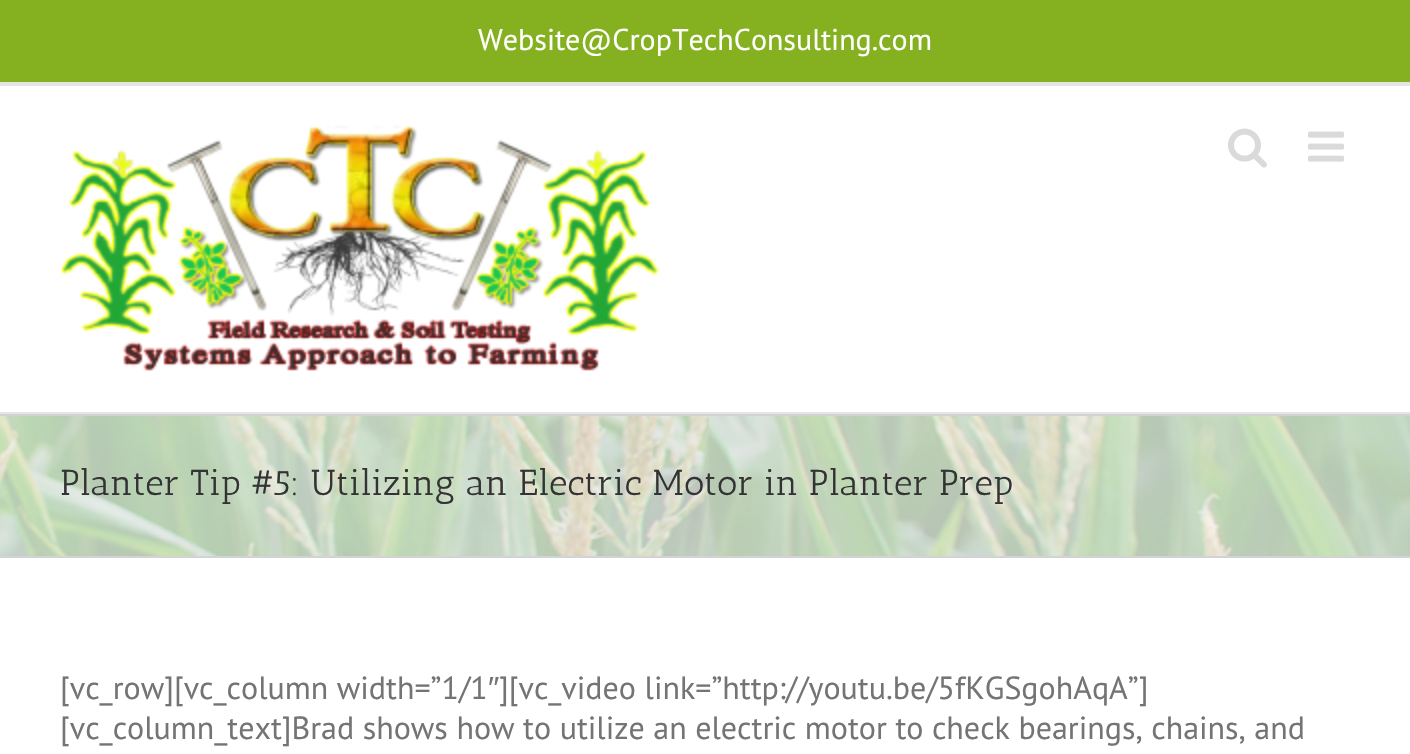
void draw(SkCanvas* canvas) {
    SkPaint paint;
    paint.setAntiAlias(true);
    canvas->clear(0xFFFFFFFF);
    paint.setColor(0xFF85B121);
    canvas->drawRect(SkRect::MakeXYWH(0, 0, 1410, 82), paint);
    paint.setColor(0xFFE5E5E5);
    canvas->drawRect(SkRect::MakeXYWH(0, 82, 1410, 4), paint);
    SkFont font1(fontMgr->matchFamilyStyle("PT Sans", SkFontStyle::Normal()), 30);
    font1.setSubpixel(true);
    paint.setColor(0xFFFFFFFF);
    canvas->drawString("Website@CropTechConsulting.com", 478, 50, font1, paint);
    paint.setColor(0xFFE5E5E5);
    canvas->drawRect(SkRect::MakeXYWH(0, 412, 1410, 2), paint);
    canvas->drawImageRect(SkImages::DeferredFromEncodedData(SkData::MakeFromFileName("img1.png")), SkRect::MakeXYWH(60, 125, 599, 246), SkSamplingOptions());
    canvas->drawImageRect(SkImages::DeferredFromEncodedData(SkData::MakeFromFileName("img2.png")), SkRect::MakeXYWH(1228, 128, 39, 40), SkSamplingOptions());
    canvas->drawImageRect(SkImages::DeferredFromEncodedData(SkData::MakeFromFileName("img3.png")), SkRect::MakeXYWH(1308, 131, 36, 31), SkSamplingOptions());
    paint.setColor(0xFFF5F5F5);
    canvas->drawRect(SkRect::MakeXYWH(0, 416, 1410, 140), paint);
    canvas->drawImageRect(SkImages::DeferredFromEncodedData(SkData::MakeFromFileName("img4.png")), SkRect::MakeXYWH(0, 416, 1410, 140), SkSamplingOptions());
    paint.setColor(0xFFD2D3D4);
    canvas->drawRect(SkRect::MakeXYWH(0, 414, 1410, 2), paint);
    canvas->drawRect(SkRect::MakeXYWH(0, 556, 1410, 2), paint);
    SkFont font2(fontMgr->matchFamilyStyle("Antic Slab", SkFontStyle::Normal()), 36);
    font2.setSubpixel(true);
    paint.setColor(0xFF333333);
    canvas->drawString("Planter Tip #5: Utilizing an Electric Motor in Planter Prep", 60, 495, font2, paint);
    SkFont font3(fontMgr->matchFamilyStyle("PT Sans", SkFontStyle::Normal()), 32);
    font3.setSubpixel(true);
    paint.setColor(0xFF747474);
    canvas->drawString("[vc_row][vc_column width=”1/1", 60, 699, font3, paint);
    SkFont font4(fontMgr->matchFamilyStyle("Liberation Sans", SkFontStyle::Normal()), 32);
    font4.setSubpixel(true);
    canvas->drawString("″", 488, 699, font4, paint);
    canvas->drawString("][vc_video link=”http://youtu.be/5fKGSgohAqA”]", 499, 699, font3, paint);
    canvas->drawString("[vc_column_text]Brad shows how to utilize an electric motor to check bearings, chains, and", 60, 739, font3, paint);
}
